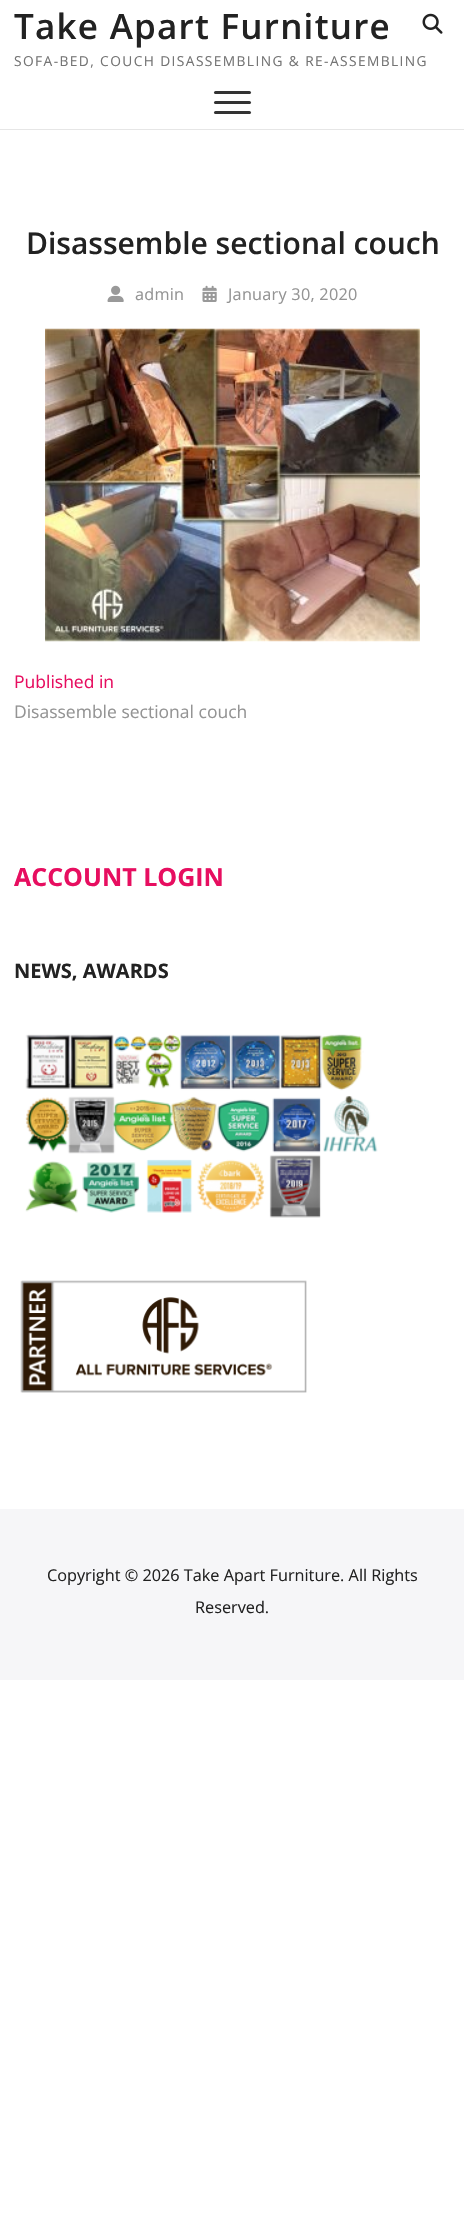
void draw(SkCanvas* canvas) {
    SkPaint paint;
    paint.setAntiAlias(true);
    auto spacedText = [&](const char* s, float x, float y, const SkFont& font, const SkPaint& ink, float letter, float word) {
        std::vector<SkGlyphID> glyphs(font.countText(s, strlen(s), SkTextEncoding::kUTF8));
        std::vector<float> xs(glyphs.size());
        font.textToGlyphs(s, strlen(s), SkTextEncoding::kUTF8, glyphs);
        font.getXPos(glyphs, xs, x);
        float extra = 0;
        for (size_t i = 0; i < glyphs.size(); i++) {
            xs[i] += extra;
            extra += letter + word * (glyphs[i] == font.unicharToGlyph(' '));
        }
        canvas->drawTextBlob(SkTextBlob::MakeFromPosHGlyphs(glyphs, xs, y, font), 0, 0, ink);
    };
    canvas->clear(0xFFFFFFFF);
    paint.setColor(0xFFE6E6E6);
    canvas->drawRect(SkRect::MakeXYWH(0, 129, 464, 1), paint);
    SkFont font1(fontMgr->matchFamilyStyle("Open Sans", SkFontStyle(600, SkFontStyle::kNormal_Width, SkFontStyle::kUpright_Slant)), 35);
    font1.setSubpixel(true);
    paint.setColor(0xFF222222);
    spacedText("Take Apart Furniture", 14, 39, font1, paint, 1.25f, 0);
    SkFont font2(fontMgr->matchFamilyStyle("Open Sans", SkFontStyle::Normal()), 13.75f);
    font2.setSubpixel(true);
    paint.setColor(0xFF747474);
    spacedText("SOFA-BED, COUCH DISASSEMBLING & RE-ASSEMBLING", 14, 66, font2, paint, 1.4f, 0);
    canvas->drawImageRect(SkImages::DeferredFromEncodedData(SkData::MakeFromFileName("img1.png")), SkRect::MakeXYWH(422, 13, 21, 21), SkSamplingOptions());
    paint.setColor(0xFF333333);
    canvas->drawRoundRect(SkRect::MakeXYWH(214, 101, 37, 3), 1.5f, 1.5f, paint);
    canvas->drawRoundRect(SkRect::MakeXYWH(214, 91, 37, 3), 1.5f, 1.5f, paint);
    canvas->drawRoundRect(SkRect::MakeXYWH(214, 111, 37, 3), 1.5f, 1.5f, paint);
    SkFont font3(fontMgr->matchFamilyStyle("Open Sans", SkFontStyle(600, SkFontStyle::kNormal_Width, SkFontStyle::kUpright_Slant)), 30);
    font3.setSubpixel(true);
    paint.setColor(0xFF222222);
    canvas->drawString("Disassemble sectional couch", 26, 254, font3, paint);
    canvas->drawImageRect(SkImages::DeferredFromEncodedData(SkData::MakeFromFileName("img2.png")), SkRect::MakeXYWH(107, 285, 17, 17), SkSamplingOptions());
    SkFont font4(fontMgr->matchFamilyStyle("Open Sans", SkFontStyle::Normal()), 16.25f);
    font4.setSubpixel(true);
    paint.setColor(0xFF949494);
    spacedText("admin", 135, 300, font4, paint, 0.25f, 0);
    canvas->drawImageRect(SkImages::DeferredFromEncodedData(SkData::MakeFromFileName("img3.png")), SkRect::MakeXYWH(202, 285, 15, 17), SkSamplingOptions());
    spacedText("January 30, 2020", 228, 300, font4, paint, 0.25f, 0);
    canvas->drawImageRect(SkImages::DeferredFromEncodedData(SkData::MakeFromFileName("img4.png")), SkRect::MakeXYWH(45, 328, 375, 314), SkSamplingOptions());
    SkFont font5(fontMgr->matchFamilyStyle("Open Sans", SkFontStyle::Normal()), 17.5f);
    font5.setSubpixel(true);
    paint.setColor(0xFFE70E60);
    canvas->drawString("Published in", 14, 688, font5, paint);
    paint.setColor(0xFF949494);
    canvas->drawString("Disassemble sectional couch", 14, 718, font5, paint);
    SkFont font6(fontMgr->matchFamilyStyle("Open Sans", SkFontStyle::Bold()), 25);
    font6.setSubpixel(true);
    paint.setColor(0xFFE70E60);
    canvas->drawString("ACCOUNT LOGIN", 14, 886, font6, paint);
    SkFont font7(fontMgr->matchFamilyStyle("Open Sans", SkFontStyle::Bold()), 20);
    font7.setSubpixel(true);
    paint.setColor(0xFF222222);
    canvas->drawString("NEWS, AWARDS", 14, 978, font7, paint);
    canvas->drawImageRect(SkImages::DeferredFromEncodedData(SkData::MakeFromFileName("img5.png")), SkRect::MakeXYWH(25, 1034, 353, 184), SkSamplingOptions());
    canvas->drawImageRect(SkImages::DeferredFromEncodedData(SkData::MakeFromFileName("img6.png")), SkRect::MakeXYWH(20, 1280, 287, 113), SkSamplingOptions());
    paint.setColor(0xFFF6F6F8);
    canvas->drawRect(SkRect::MakeXYWH(0, 1509, 464, 171), paint);
    paint.setColor(0xFF222222);
    canvas->drawString("Copyright © 2026 Take Apart Furniture. All Rights", 47, 1581, font4, paint);
    canvas->drawString("Reserved.", 195, 1613, font4, paint);
}
